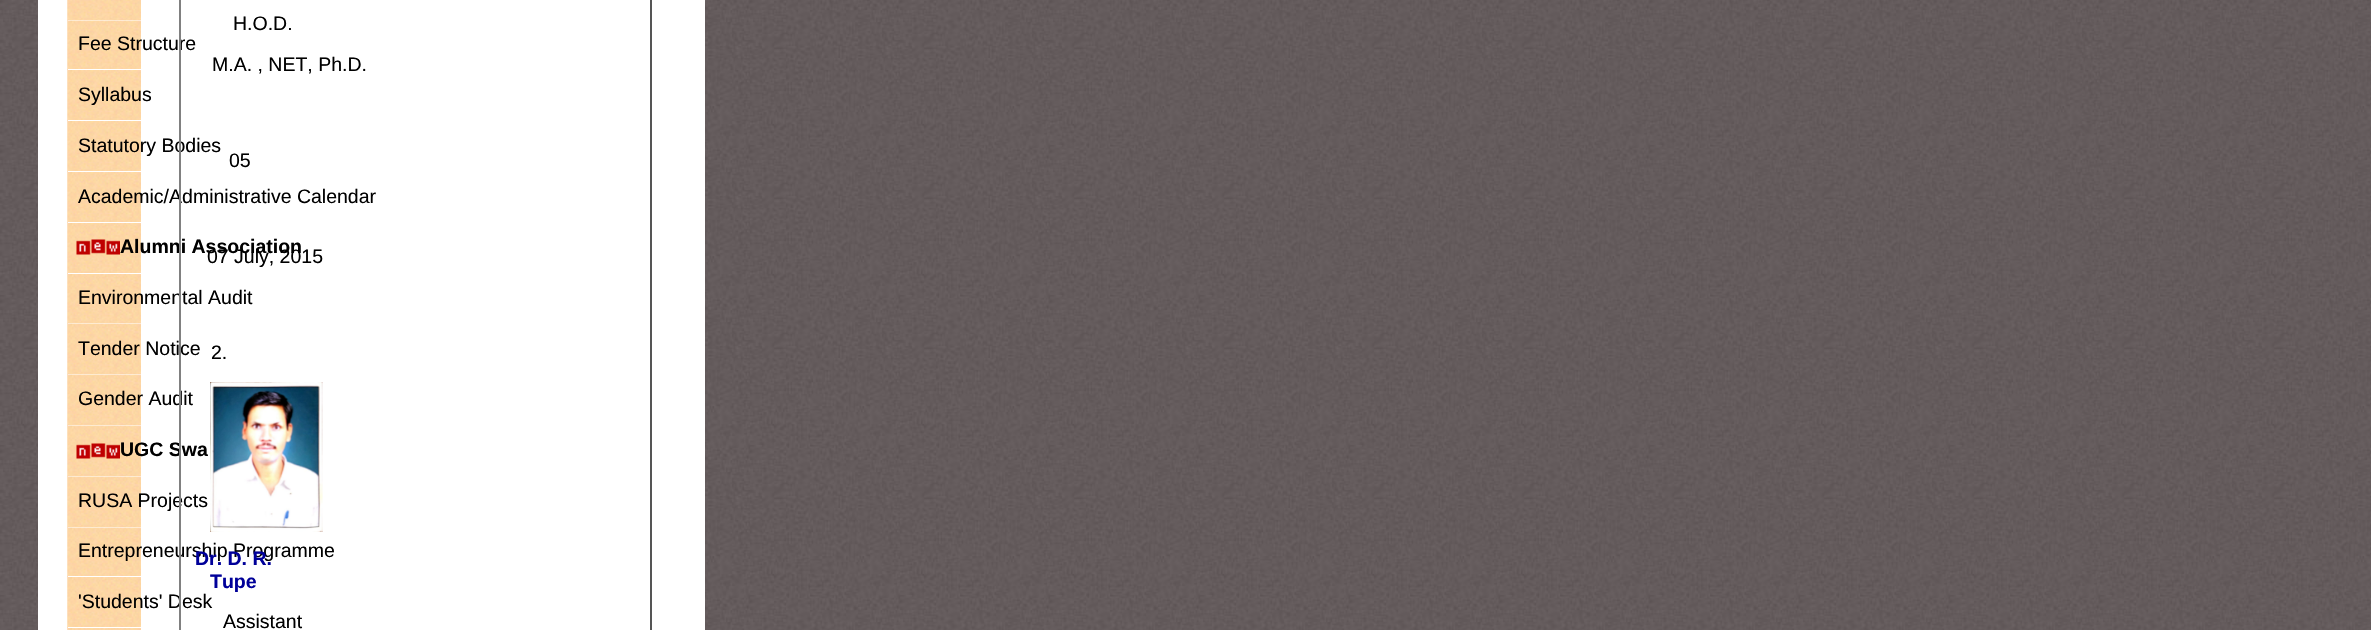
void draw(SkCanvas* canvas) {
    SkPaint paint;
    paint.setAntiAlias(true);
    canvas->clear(0xFFFFFFFF);
    canvas->drawImageRect(SkImages::DeferredFromEncodedData(SkData::MakeFromFileName("img1.png")), SkRect::MakeXYWH(0, 0, 2371, 630), SkSamplingOptions());
    paint.setColor(0xFFFFFFFF);
    canvas->drawRect(SkRect::MakeXYWH(38, 0, 667, 630), paint);
    paint.setColor(0xFF555555);
    canvas->drawRect(SkRect::MakeXYWH(650, 0, 2, 630), paint);
    canvas->drawImageRect(SkImages::DeferredFromEncodedData(SkData::MakeFromFileName("img3.png")), SkRect::MakeXYWH(67, 0, 1, 630), SkSamplingOptions());
    canvas->drawImageRect(SkImages::DeferredFromEncodedData(SkData::MakeFromFileName("img4.png")), SkRect::MakeXYWH(67, 0, 74, 21), SkSamplingOptions());
    paint.setColor(0xFFFFFFFF);
    canvas->drawRect(SkRect::MakeXYWH(68, 20, 73, 1), paint);
    canvas->drawImageRect(SkImages::DeferredFromEncodedData(SkData::MakeFromFileName("img5.png")), SkRect::MakeXYWH(67, 20, 74, 50), SkSamplingOptions());
    SkFont font1(fontMgr->matchFamilyStyle("Liberation Sans", SkFontStyle::Normal()), 19.5f);
    font1.setSubpixel(true);
    paint.setColor(0xFF000000);
    canvas->drawString("Fee Structure", 78, 50, font1, paint);
    canvas->drawImageRect(SkImages::DeferredFromEncodedData(SkData::MakeFromFileName("img7.png")), SkRect::MakeXYWH(67, 121, 74, 51), SkSamplingOptions());
    canvas->drawString("Statutory Bodies", 78, 152, font1, paint);
    canvas->drawImageRect(SkImages::DeferredFromEncodedData(SkData::MakeFromFileName("img8.png")), SkRect::MakeXYWH(67, 172, 74, 51), SkSamplingOptions());
    canvas->drawString("Academic/Administrative Calendar", 78, 203, font1, paint);
    canvas->drawImageRect(SkImages::DeferredFromEncodedData(SkData::MakeFromFileName("img9.png")), SkRect::MakeXYWH(67, 223, 74, 51), SkSamplingOptions());
    SkFont font2(fontMgr->matchFamilyStyle("Liberation Sans", SkFontStyle::Bold()), 19.5f);
    font2.setSubpixel(true);
    canvas->drawString("Alumni Association", 120, 253, font2, paint);
    canvas->drawImageRect(SkImages::DeferredFromEncodedData(SkData::MakeFromFileName("img11.png")), SkRect::MakeXYWH(67, 274, 74, 50), SkSamplingOptions());
    canvas->drawString("Environmental Audit", 78, 304, font1, paint);
    paint.setColor(0xFFFFFFFF);
    canvas->drawRect(SkRect::MakeXYWH(68, 323, 73, 1), paint);
    canvas->drawImageRect(SkImages::DeferredFromEncodedData(SkData::MakeFromFileName("img12.png")), SkRect::MakeXYWH(67, 323, 74, 52), SkSamplingOptions());
    paint.setColor(0xFF000000);
    canvas->drawString("Tender Notice", 78, 355, font1, paint);
    paint.setColor(0xFFFFFFFF);
    canvas->drawRect(SkRect::MakeXYWH(68, 374, 73, 1), paint);
    canvas->drawImageRect(SkImages::DeferredFromEncodedData(SkData::MakeFromFileName("img13.png")), SkRect::MakeXYWH(67, 374, 74, 52), SkSamplingOptions());
    paint.setColor(0xFF000000);
    canvas->drawString("Gender Audit", 78, 405, font1, paint);
    paint.setColor(0xFFFFFFFF);
    canvas->drawRect(SkRect::MakeXYWH(68, 425, 73, 1), paint);
    canvas->drawImageRect(SkImages::DeferredFromEncodedData(SkData::MakeFromFileName("img14.png")), SkRect::MakeXYWH(67, 425, 74, 52), SkSamplingOptions());
    paint.setColor(0xFF000000);
    canvas->drawString("UGC Swa", 120, 456, font2, paint);
    paint.setColor(0xFFFFFFFF);
    canvas->drawRect(SkRect::MakeXYWH(68, 476, 73, 1), paint);
    canvas->drawImageRect(SkImages::DeferredFromEncodedData(SkData::MakeFromFileName("img16.png")), SkRect::MakeXYWH(67, 476, 74, 52), SkSamplingOptions());
    paint.setColor(0xFF000000);
    canvas->drawString("RUSA Projects", 78, 507, font1, paint);
    paint.setColor(0xFFFFFFFF);
    canvas->drawRect(SkRect::MakeXYWH(68, 527, 73, 1), paint);
    canvas->drawImageRect(SkImages::DeferredFromEncodedData(SkData::MakeFromFileName("img17.png")), SkRect::MakeXYWH(67, 527, 74, 50), SkSamplingOptions());
    paint.setColor(0xFF000000);
    canvas->drawString("Entrepreneurship Programme", 78, 557, font1, paint);
    canvas->drawImageRect(SkImages::DeferredFromEncodedData(SkData::MakeFromFileName("img18.png")), SkRect::MakeXYWH(67, 577, 74, 51), SkSamplingOptions());
    canvas->drawString("'Students' Desk", 78, 608, font1, paint);
    paint.setColor(0xFF808080);
    canvas->drawRect(SkRect::MakeXYWH(179, 0, 2, 630), paint);
    paint.setColor(0xFF000000);
    canvas->drawString("H.O.D.", 233, 30, font1, paint);
    canvas->drawString("M.A. , NET, Ph.D.", 212, 71, font1, paint);
    canvas->drawString("05", 229, 167, font1, paint);
    canvas->drawString("07 July, 2015", 207, 263, font1, paint);
    canvas->drawString("2.", 211, 359, font1, paint);
    canvas->drawImageRect(SkImages::DeferredFromEncodedData(SkData::MakeFromFileName("img2.png")), SkRect::MakeXYWH(210, 382, 113, 150), SkSamplingOptions());
    paint.setColor(0xFF000099);
    canvas->drawString("Dr. D. R.", 195, 565, font2, paint);
    canvas->drawString("Tupe", 210, 588, font2, paint);
    paint.setColor(0xFF000000);
    canvas->drawString("Assistant", 223, 628, font1, paint);
    paint.setColor(0xFFFFFFFF);
    canvas->drawRect(SkRect::MakeXYWH(68, 69, 73, 1), paint);
    canvas->drawImageRect(SkImages::DeferredFromEncodedData(SkData::MakeFromFileName("img6.png")), SkRect::MakeXYWH(67, 70, 74, 51), SkSamplingOptions());
    canvas->drawRect(SkRect::MakeXYWH(68, 120, 73, 1), paint);
    paint.setColor(0xFF000000);
    canvas->drawString("Syllabus", 78, 101, font1, paint);
    paint.setColor(0xFFFFFFFF);
    canvas->drawRect(SkRect::MakeXYWH(68, 171, 73, 1), paint);
    canvas->drawRect(SkRect::MakeXYWH(68, 222, 73, 1), paint);
    canvas->drawRect(SkRect::MakeXYWH(68, 273, 73, 1), paint);
    canvas->drawImageRect(SkImages::DeferredFromEncodedData(SkData::MakeFromFileName("img10.png")), SkRect::MakeXYWH(76, 239, 44, 16), SkSamplingOptions());
    canvas->drawImageRect(SkImages::DeferredFromEncodedData(SkData::MakeFromFileName("img15.png")), SkRect::MakeXYWH(76, 443, 44, 16), SkSamplingOptions());
    canvas->drawRect(SkRect::MakeXYWH(68, 576, 73, 1), paint);
    canvas->drawRect(SkRect::MakeXYWH(68, 627, 73, 1), paint);
    canvas->drawImageRect(SkImages::DeferredFromEncodedData(SkData::MakeFromFileName("img19.png")), SkRect::MakeXYWH(67, 628, 74, 2), SkSamplingOptions());
}
